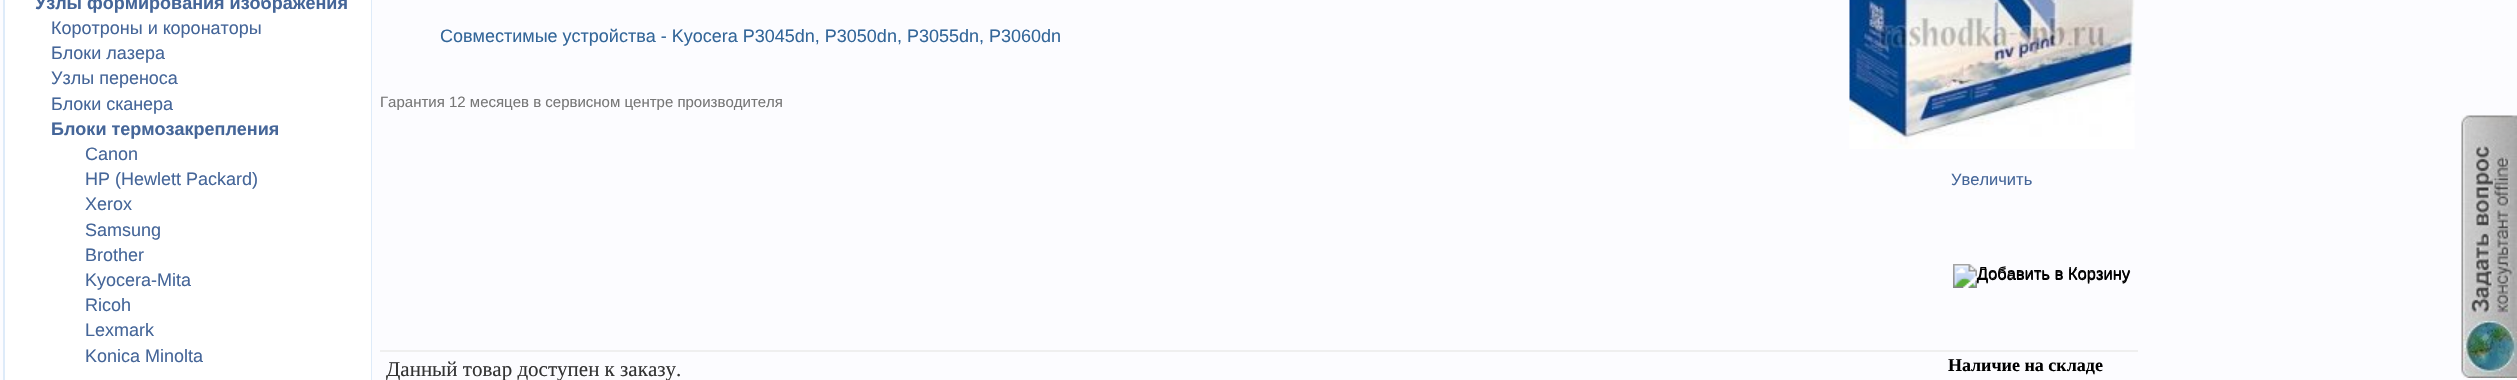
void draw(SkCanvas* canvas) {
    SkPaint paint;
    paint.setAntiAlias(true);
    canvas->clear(0xFFFCFCFF);
    paint.setColor(0xFFDEEBF9);
    canvas->drawRect(SkRect::MakeXYWH(3, 0, 369, 380), paint);
    paint.setColor(0xFFFFFFFF);
    canvas->drawRect(SkRect::MakeXYWH(5, 0, 366, 380), paint);
    SkFont font1(fontMgr->matchFamilyStyle("Liberation Sans", SkFontStyle::Bold()), 18);
    font1.setSubpixel(true);
    paint.setColor(0xFF456699);
    canvas->drawString("Узлы формирования изображения", 35, 9, font1, paint);
    SkFont font2(fontMgr->matchFamilyStyle("Liberation Sans", SkFontStyle::Normal()), 18);
    font2.setSubpixel(true);
    canvas->drawString("Коротроны и коронаторы", 51, 34, font2, paint);
    canvas->drawString("Блоки лазера", 51, 59, font2, paint);
    canvas->drawString("Узлы переноса", 51, 84, font2, paint);
    canvas->drawString("Блоки сканера", 51, 110, font2, paint);
    canvas->drawString("Блоки термозакрепления", 51, 135, font1, paint);
    canvas->drawString("Canon", 85, 160, font2, paint);
    canvas->drawString("HP (Hewlett Packard)", 85, 185, font2, paint);
    canvas->drawString("Xerox", 85, 210, font2, paint);
    canvas->drawString("Samsung", 85, 236, font2, paint);
    canvas->drawString("Brother", 85, 261, font2, paint);
    canvas->drawString("Kyocera-Mita", 85, 286, font2, paint);
    canvas->drawString("Ricoh", 85, 311, font2, paint);
    canvas->drawString("Lexmark", 85, 336, font2, paint);
    canvas->drawString("Konica Minolta", 85, 362, font2, paint);
    paint.setColor(0xFF336699);
    canvas->drawString("Совместимые устройства - Kyocera P3045dn, P3050dn, P3055dn, P3060dn", 440, 42, font2, paint);
    SkFont font3(fontMgr->matchFamilyStyle("Liberation Sans", SkFontStyle::Normal()), 15);
    font3.setSubpixel(true);
    paint.setColor(0xFF777777);
    canvas->drawString("Гарантия 12 месяцев в сервисном центре производителя", 380, 107, font3, paint);
    canvas->drawImageRect(SkImages::DeferredFromEncodedData(SkData::MakeFromFileName("img1.png")), SkRect::MakeXYWH(1849, 0, 286, 149), SkSamplingOptions());
    SkFont font4(fontMgr->matchFamilyStyle("Liberation Sans", SkFontStyle::Normal()), 16.5f);
    font4.setSubpixel(true);
    paint.setColor(0xFF456699);
    canvas->drawString("Увеличить", 1951, 185, font4, paint);
    paint.setColor(0xFFEFEFEF);
    canvas->drawRect(SkRect::MakeXYWH(380, 350, 1758, 2), paint);
    canvas->drawImageRect(SkImages::DeferredFromEncodedData(SkData::MakeFromFileName("img2.png")), SkRect::MakeXYWH(1953, 264, 177, 24), SkSamplingOptions());
    paint.setColor(0xFF000000);
    canvas->drawString("Добавить в Корзину", 1977, 280, font4, paint);
    SkFont font5(fontMgr->matchFamilyStyle("Liberation Serif", SkFontStyle::Normal()), 21);
    font5.setSubpixel(true);
    paint.setColor(0xFF333333);
    canvas->drawString("Данный товар доступен к заказу.", 386, 376, font5, paint);
    SkFont font6(fontMgr->matchFamilyStyle("Liberation Serif", SkFontStyle::Bold()), 18);
    font6.setSubpixel(true);
    paint.setColor(0xFF000000);
    canvas->drawString("Наличие на складе", 1948, 371, font6, paint);
    canvas->drawImageRect(SkImages::DeferredFromEncodedData(SkData::MakeFromFileName("img3.png")), SkRect::MakeXYWH(2461, 115, 56, 263), SkSamplingOptions());
}
